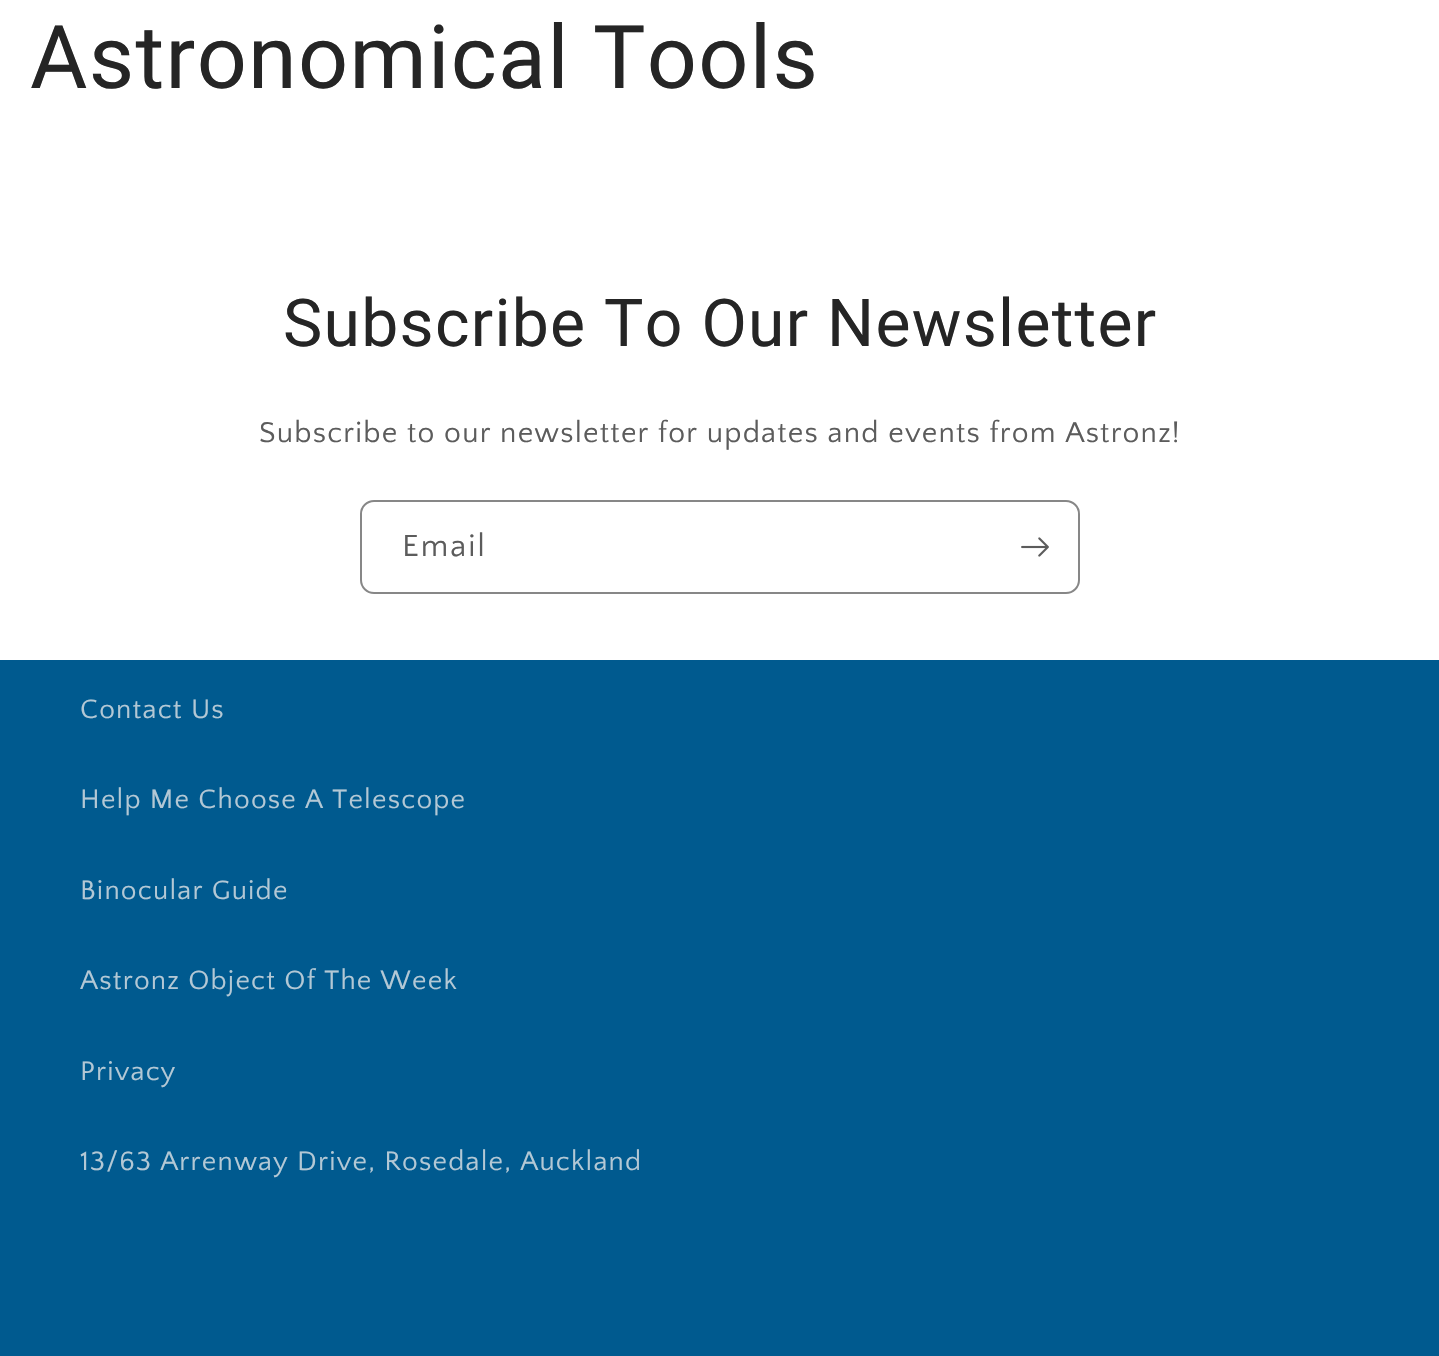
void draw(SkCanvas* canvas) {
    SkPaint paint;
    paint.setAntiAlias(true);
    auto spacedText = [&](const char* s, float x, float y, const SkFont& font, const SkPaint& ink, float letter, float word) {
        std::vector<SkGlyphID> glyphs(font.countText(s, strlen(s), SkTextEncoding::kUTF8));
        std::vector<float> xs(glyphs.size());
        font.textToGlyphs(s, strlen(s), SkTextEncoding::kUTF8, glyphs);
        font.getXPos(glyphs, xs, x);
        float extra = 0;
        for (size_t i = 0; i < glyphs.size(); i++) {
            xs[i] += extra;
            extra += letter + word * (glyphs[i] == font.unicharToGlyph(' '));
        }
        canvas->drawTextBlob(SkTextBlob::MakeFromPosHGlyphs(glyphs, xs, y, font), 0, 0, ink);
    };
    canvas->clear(0xFFFFFFFF);
    SkFont font1(fontMgr->matchFamilyStyle("Roboto", SkFontStyle::Normal()), 88);
    font1.setSubpixel(true);
    paint.setColor(0xFF252525);
    spacedText("Astronomical Tools", 30, 88, font1, paint, 1.3f, 0);
    SkFont font2(fontMgr->matchFamilyStyle("Roboto", SkFontStyle::Normal()), 66);
    font2.setSubpixel(true);
    spacedText("Subscribe To Our Newsletter", 283, 346, font2, paint, 1.3f, 0);
    SkFont font3(fontMgr->matchFamilyStyle("Quattrocento Sans", SkFontStyle::Normal()), 30);
    font3.setSubpixel(true);
    paint.setColor(0xFF5C5C5C);
    spacedText("Subscribe to our newsletter for updates and events from Astronz!", 259, 442, font3, paint, 1.2f, 0);
    paint.setStyle(SkPaint::kStroke_Style);
    paint.setStrokeWidth(2);
    paint.setColor(0xFF878787);
    canvas->drawRoundRect(SkRect::MakeXYWH(361, 501, 718, 92), 13, 13, paint);
    SkFont font4(fontMgr->matchFamilyStyle("Quattrocento Sans", SkFontStyle::Normal()), 32);
    font4.setSubpixel(true);
    paint.setStyle(SkPaint::kFill_Style);
    paint.setColor(0xFF5C5C5C);
    spacedText("Email", 402, 556, font4, paint, 2, 0);
    canvas->drawImageRect(SkImages::DeferredFromEncodedData(SkData::MakeFromFileName("img1.png")), SkRect::MakeXYWH(1021, 537, 28, 20), SkSamplingOptions());
    paint.setColor(0xFF005A8F);
    canvas->drawRect(SkRect::MakeXYWH(0, 660, 1439, 696), paint);
    SkFont font5(fontMgr->matchFamilyStyle("Quattrocento Sans", SkFontStyle::Normal()), 28);
    font5.setSubpixel(true);
    paint.setColor(0xFFB3C8D5);
    spacedText("Contact Us", 80, 718, font5, paint, 1.2f, 0);
    spacedText("Help Me Choose A Telescope", 80, 808, font5, paint, 1.2f, 0);
    spacedText("Binocular Guide", 80, 899, font5, paint, 1.2f, 0);
    spacedText("Astronz Object Of The Week", 80, 989, font5, paint, 1.2f, 0);
    spacedText("Privacy", 80, 1080, font5, paint, 1.2f, 0);
    spacedText("13/63 Arrenway Drive, Rosedale, Auckland", 80, 1170, font5, paint, 1.2f, 0);
}
